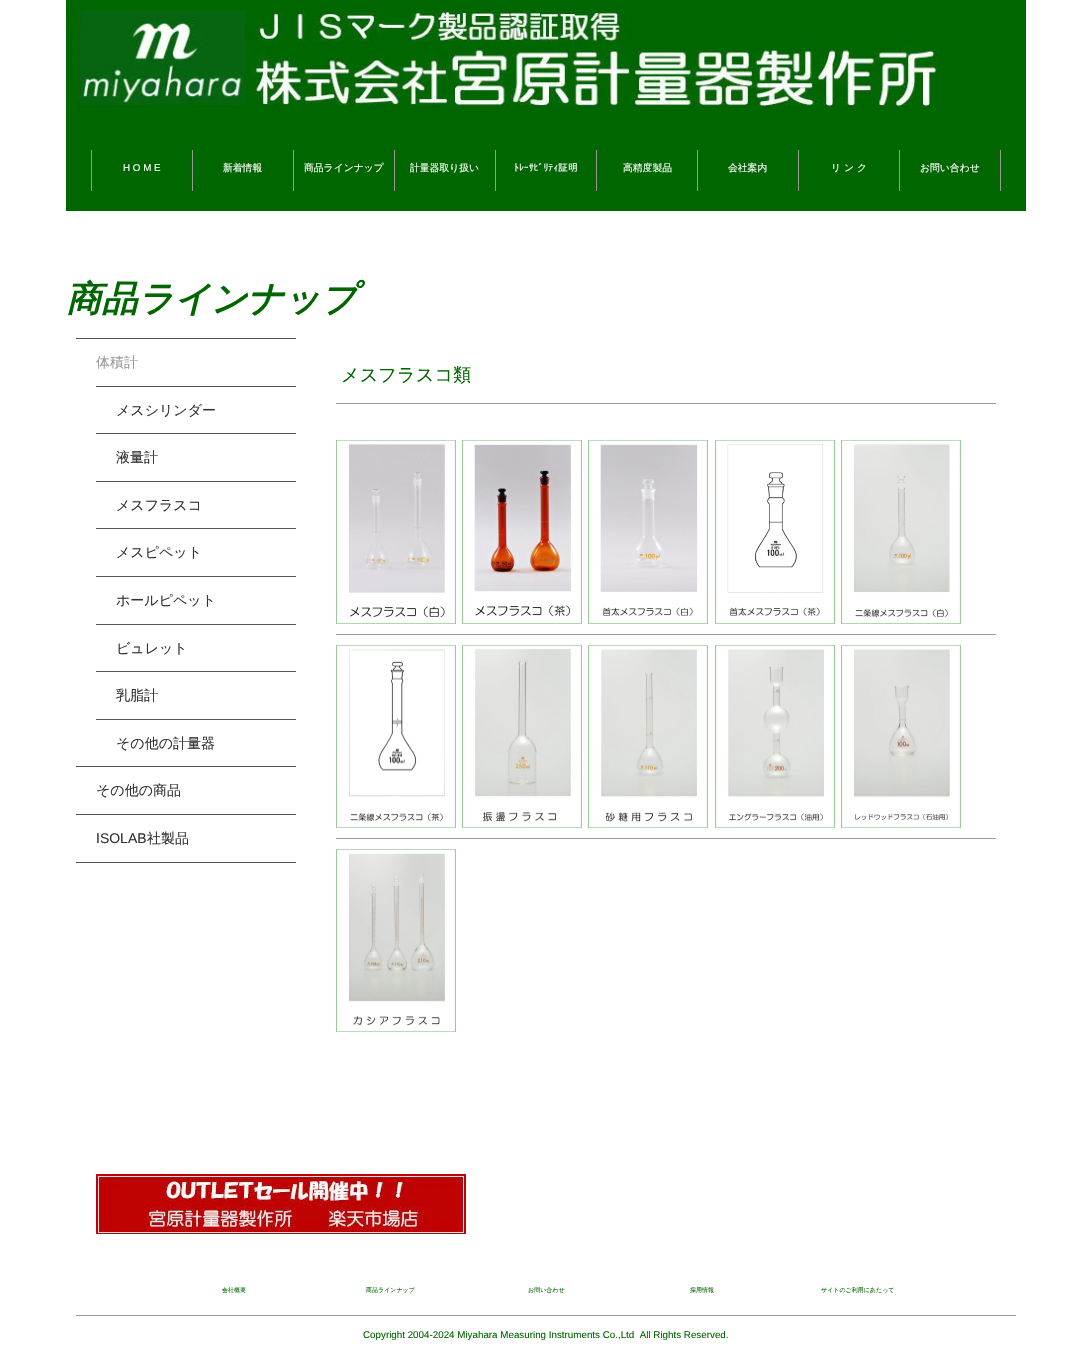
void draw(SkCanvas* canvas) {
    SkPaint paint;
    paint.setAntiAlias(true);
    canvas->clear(0xFFFFFFFF);
    paint.setColor(0xFF006600);
    canvas->drawRect(SkRect::MakeXYWH(66, 0, 960, 211), paint);
    canvas->drawImageRect(SkImages::DeferredFromEncodedData(SkData::MakeFromFileName("img1.png")), SkRect::MakeXYWH(76, 10, 863, 97), SkSamplingOptions());
    paint.setColor(0xFF999999);
    canvas->drawRect(SkRect::MakeXYWH(192, 150, 1, 41), paint);
    canvas->drawRect(SkRect::MakeXYWH(91, 150, 1, 41), paint);
    SkFont font1(fontMgr->matchFamilyStyle("Liberation Sans", SkFontStyle::Normal()), 9.8f);
    font1.setSubpixel(true);
    paint.setColor(0xFFFFFFFF);
    canvas->drawString("H O M E", 123, 171, font1, paint);
    paint.setColor(0xFF999999);
    canvas->drawRect(SkRect::MakeXYWH(293, 150, 1, 41), paint);
    SkFont font2(fontMgr->matchFamilyStyle("WenQuanYi Zen Hei", SkFontStyle(500, SkFontStyle::kNormal_Width, SkFontStyle::kUpright_Slant)), 9.8f);
    font2.setSubpixel(true);
    paint.setColor(0xFFFFFFFF);
    canvas->drawString("新着情報", 223, 171, font2, paint);
    paint.setColor(0xFF999999);
    canvas->drawRect(SkRect::MakeXYWH(394, 150, 1, 41), paint);
    paint.setColor(0xFFFFFFFF);
    canvas->drawString("商品ラインナップ", 304, 171, font2, paint);
    paint.setColor(0xFF999999);
    canvas->drawRect(SkRect::MakeXYWH(495, 150, 1, 41), paint);
    paint.setColor(0xFFFFFFFF);
    canvas->drawString("計量器取り扱い", 410, 171, font2, paint);
    paint.setColor(0xFF999999);
    canvas->drawRect(SkRect::MakeXYWH(596, 150, 1, 41), paint);
    SkFont font3(fontMgr->matchFamilyStyle("IPAPGothic", SkFontStyle::Normal()), 9.8f);
    font3.setSubpixel(true);
    paint.setColor(0xFFFFFFFF);
    canvas->drawString("ﾄﾚｰｻﾋﾞﾘﾃｨ証明", 514, 171, font3, paint);
    paint.setColor(0xFF999999);
    canvas->drawRect(SkRect::MakeXYWH(697, 150, 1, 41), paint);
    paint.setColor(0xFFFFFFFF);
    canvas->drawString("高精度製品", 623, 171, font2, paint);
    paint.setColor(0xFF999999);
    canvas->drawRect(SkRect::MakeXYWH(798, 150, 1, 41), paint);
    paint.setColor(0xFFFFFFFF);
    canvas->drawString("会社案内", 728, 171, font2, paint);
    paint.setColor(0xFF999999);
    canvas->drawRect(SkRect::MakeXYWH(899, 150, 1, 41), paint);
    paint.setColor(0xFFFFFFFF);
    canvas->drawString("リ ン ク", 831, 171, font2, paint);
    paint.setColor(0xFF999999);
    canvas->drawRect(SkRect::MakeXYWH(1000, 150, 1, 41), paint);
    paint.setColor(0xFFFFFFFF);
    canvas->drawString("お問い合わせ", 920, 171, font2, paint);
    SkFont font4(fontMgr->matchFamilyStyle("WenQuanYi Zen Hei", SkFontStyle::BoldItalic()), 35.75f);
    font4.setSubpixel(true);
    paint.setColor(0xFF006600);
    canvas->drawString("商品ラインナップ", 66, 311, font4, paint);
    paint.setColor(0xFF555555);
    canvas->drawRect(SkRect::MakeXYWH(76, 862, 220, 1), paint);
    canvas->drawRect(SkRect::MakeXYWH(76, 338, 220, 1), paint);
    SkFont font5(fontMgr->matchFamilyStyle("WenQuanYi Zen Hei", SkFontStyle(500, SkFontStyle::kNormal_Width, SkFontStyle::kUpright_Slant)), 14);
    font5.setSubpixel(true);
    paint.setColor(0xFF999999);
    canvas->drawString("体積計", 96, 367, font5, paint);
    paint.setColor(0xFF555555);
    canvas->drawRect(SkRect::MakeXYWH(96, 386, 200, 1), paint);
    paint.setColor(0xFF333333);
    canvas->drawString("メスシリンダー", 116, 415, font5, paint);
    paint.setColor(0xFF555555);
    canvas->drawRect(SkRect::MakeXYWH(96, 433, 200, 1), paint);
    paint.setColor(0xFF333333);
    canvas->drawString("液量計", 116, 462, font5, paint);
    paint.setColor(0xFF555555);
    canvas->drawRect(SkRect::MakeXYWH(96, 481, 200, 1), paint);
    paint.setColor(0xFF333333);
    canvas->drawString("メスフラスコ", 116, 510, font5, paint);
    paint.setColor(0xFF555555);
    canvas->drawRect(SkRect::MakeXYWH(96, 528, 200, 1), paint);
    paint.setColor(0xFF333333);
    canvas->drawString("メスピペット", 116, 557, font5, paint);
    paint.setColor(0xFF555555);
    canvas->drawRect(SkRect::MakeXYWH(96, 576, 200, 1), paint);
    paint.setColor(0xFF333333);
    canvas->drawString("ホールピペット", 116, 605, font5, paint);
    paint.setColor(0xFF555555);
    canvas->drawRect(SkRect::MakeXYWH(96, 624, 200, 1), paint);
    paint.setColor(0xFF333333);
    canvas->drawString("ビュレット", 116, 653, font5, paint);
    paint.setColor(0xFF555555);
    canvas->drawRect(SkRect::MakeXYWH(96, 671, 200, 1), paint);
    paint.setColor(0xFF333333);
    canvas->drawString("乳脂計", 116, 700, font5, paint);
    paint.setColor(0xFF555555);
    canvas->drawRect(SkRect::MakeXYWH(96, 719, 200, 1), paint);
    paint.setColor(0xFF333333);
    canvas->drawString("その他の計量器", 116, 748, font5, paint);
    paint.setColor(0xFF555555);
    canvas->drawRect(SkRect::MakeXYWH(76, 766, 220, 1), paint);
    paint.setColor(0xFF333333);
    canvas->drawString("その他の商品", 96, 795, font5, paint);
    paint.setColor(0xFF555555);
    canvas->drawRect(SkRect::MakeXYWH(76, 814, 220, 1), paint);
    SkFont font6(fontMgr->matchFamilyStyle("Liberation Sans", SkFontStyle::Normal()), 14);
    font6.setSubpixel(true);
    paint.setColor(0xFF333333);
    canvas->drawString("ISOLAB", 96, 843, font6, paint);
    canvas->drawString("社製品", 147, 843, font5, paint);
    SkFont font7(fontMgr->matchFamilyStyle("WenQuanYi Zen Hei", SkFontStyle(500, SkFontStyle::kNormal_Width, SkFontStyle::kUpright_Slant)), 18.25f);
    font7.setSubpixel(true);
    paint.setColor(0xFF006600);
    canvas->drawString("メスフラスコ類", 341, 381, font7, paint);
    paint.setColor(0xFF999999);
    canvas->drawRect(SkRect::MakeXYWH(336, 403, 660, 1), paint);
    canvas->drawImageRect(SkImages::DeferredFromEncodedData(SkData::MakeFromFileName("img2.png")), SkRect::MakeXYWH(336, 440, 120, 184), SkSamplingOptions());
    canvas->drawImageRect(SkImages::DeferredFromEncodedData(SkData::MakeFromFileName("img3.png")), SkRect::MakeXYWH(462, 440, 120, 184), SkSamplingOptions());
    canvas->drawImageRect(SkImages::DeferredFromEncodedData(SkData::MakeFromFileName("img4.png")), SkRect::MakeXYWH(588, 440, 120, 184), SkSamplingOptions());
    canvas->drawImageRect(SkImages::DeferredFromEncodedData(SkData::MakeFromFileName("img5.png")), SkRect::MakeXYWH(715, 440, 120, 184), SkSamplingOptions());
    canvas->drawImageRect(SkImages::DeferredFromEncodedData(SkData::MakeFromFileName("img6.png")), SkRect::MakeXYWH(841, 440, 120, 184), SkSamplingOptions());
    canvas->drawRect(SkRect::MakeXYWH(336, 634, 660, 1), paint);
    canvas->drawImageRect(SkImages::DeferredFromEncodedData(SkData::MakeFromFileName("img7.png")), SkRect::MakeXYWH(336, 645, 120, 183), SkSamplingOptions());
    canvas->drawImageRect(SkImages::DeferredFromEncodedData(SkData::MakeFromFileName("img8.png")), SkRect::MakeXYWH(462, 645, 120, 183), SkSamplingOptions());
    canvas->drawImageRect(SkImages::DeferredFromEncodedData(SkData::MakeFromFileName("img9.png")), SkRect::MakeXYWH(588, 645, 120, 183), SkSamplingOptions());
    canvas->drawImageRect(SkImages::DeferredFromEncodedData(SkData::MakeFromFileName("img10.png")), SkRect::MakeXYWH(715, 645, 120, 183), SkSamplingOptions());
    canvas->drawImageRect(SkImages::DeferredFromEncodedData(SkData::MakeFromFileName("img11.png")), SkRect::MakeXYWH(841, 645, 120, 183), SkSamplingOptions());
    canvas->drawRect(SkRect::MakeXYWH(336, 838, 660, 1), paint);
    canvas->drawImageRect(SkImages::DeferredFromEncodedData(SkData::MakeFromFileName("img12.png")), SkRect::MakeXYWH(336, 849, 120, 183), SkSamplingOptions());
    canvas->drawImageRect(SkImages::DeferredFromEncodedData(SkData::MakeFromFileName("img13.png")), SkRect::MakeXYWH(96, 1174, 370, 60), SkSamplingOptions());
    SkFont font8(fontMgr->matchFamilyStyle("WenQuanYi Zen Hei", SkFontStyle(500, SkFontStyle::kNormal_Width, SkFontStyle::kUpright_Slant)), 6);
    font8.setSubpixel(true);
    paint.setColor(0xFF006600);
    canvas->drawString("会社概要", 222, 1292, font8, paint);
    canvas->drawString("商品ラインナップ", 366, 1292, font8, paint);
    canvas->drawString("お問い合わせ", 528, 1292, font8, paint);
    canvas->drawString("採用情報", 690, 1292, font8, paint);
    canvas->drawString("サイトのご利用にあたって", 821, 1292, font8, paint);
    paint.setColor(0xFF999999);
    canvas->drawRect(SkRect::MakeXYWH(76, 1315, 940, 1), paint);
    paint.setColor(0xFF006600);
    canvas->drawString("Copyright 2004-2024 Miyahara Measuring Instruments Co.,Ltd  All Rights Reserved.", 363, 1338, font1, paint);
}
